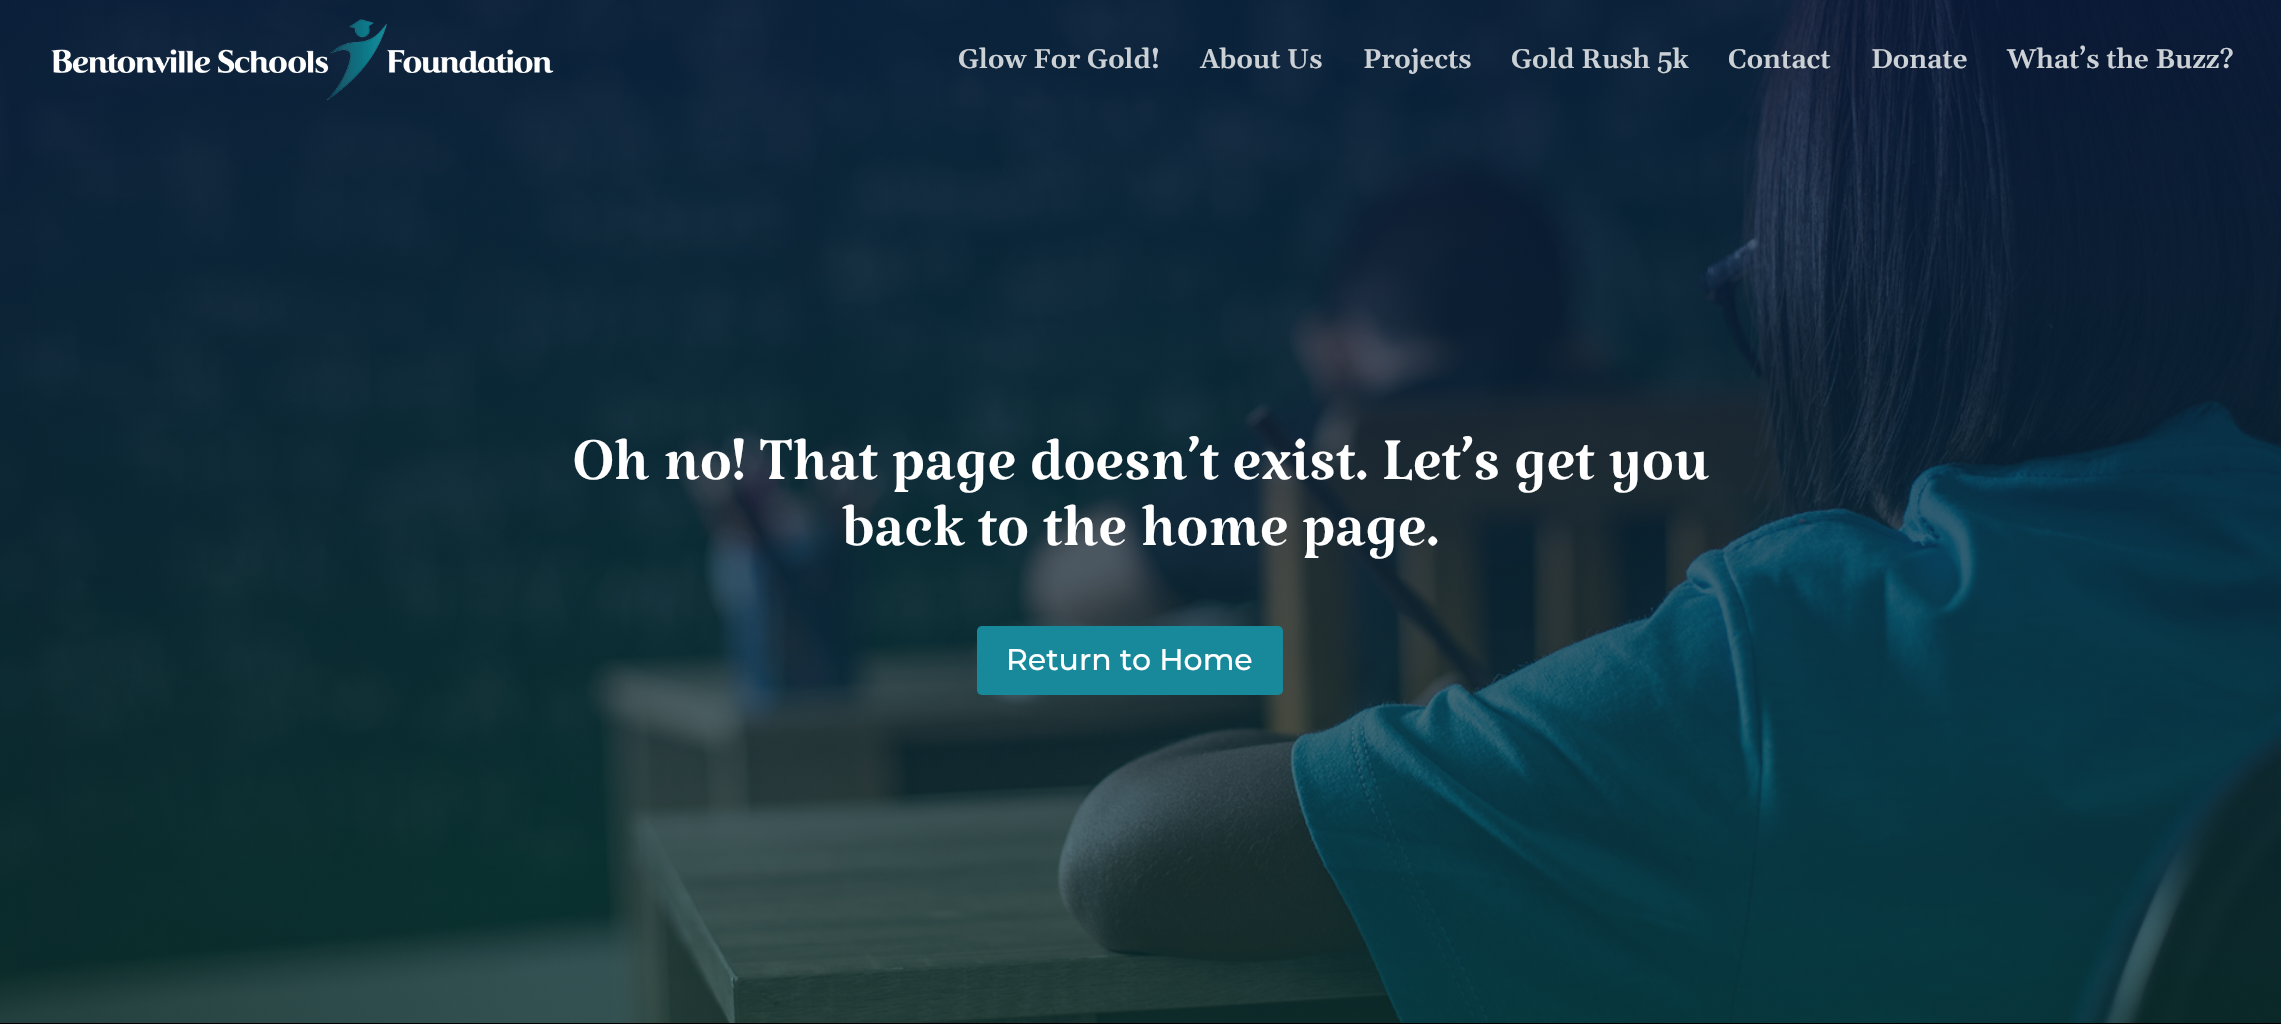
void draw(SkCanvas* canvas) {
    SkPaint paint;
    paint.setAntiAlias(true);
    canvas->clear(0xFFFFFFFF);
    canvas->drawImageRect(SkImages::DeferredFromEncodedData(SkData::MakeFromFileName("img2.png")), SkRect::MakeXYWH(0, 0, 2281, 1023), SkSamplingOptions());
    canvas->drawImageRect(SkImages::DeferredFromEncodedData(SkData::MakeFromFileName("img1.png")), SkRect::MakeXYWH(51, 19, 503, 82), SkSamplingOptions());
    SkFont font1(fontMgr->matchFamilyStyle("Gelasio", SkFontStyle(600, SkFontStyle::kNormal_Width, SkFontStyle::kUpright_Slant)), 27);
    font1.setSubpixel(true);
    paint.setColor(0xFFCCD1D6);
    canvas->drawString("Glow For Gold!", 958, 68, font1, paint);
    canvas->drawString("About Us", 1200, 68, font1, paint);
    canvas->drawString("Projects", 1363, 68, font1, paint);
    canvas->drawString("Gold Rush 5k", 1511, 68, font1, paint);
    canvas->drawString("Contact", 1728, 68, font1, paint);
    canvas->drawString("Donate", 1871, 68, font1, paint);
    canvas->drawString("What’s the Buzz?", 2007, 68, font1, paint);
    SkFont font2(fontMgr->matchFamilyStyle("Katibeh", SkFontStyle::Normal()), 82.5f);
    font2.setSubpixel(true);
    paint.setColor(0xFFFFFFFF);
    canvas->drawString("Oh no! That page doesn’t exist. Let’s get you", 573, 479, font2, paint);
    canvas->drawString("back to the home page.", 842, 545, font2, paint);
    paint.setColor(0xFF17899B);
    canvas->drawRoundRect(SkRect::MakeXYWH(977, 626, 306, 69), 5, 5, paint);
    SkFont font3(fontMgr->matchFamilyStyle("Montserrat", SkFontStyle(100, SkFontStyle::kNormal_Width, SkFontStyle::kUpright_Slant)), 30);
    font3.setSubpixel(true);
    paint.setColor(0xFFFFFFFF);
    canvas->drawString("Return to Home", 1006, 670, font3, paint);
    paint.setColor(0xFF000000);
    canvas->drawRect(SkRect::MakeXYWH(0, 1023, 2281, 1), paint);
}
